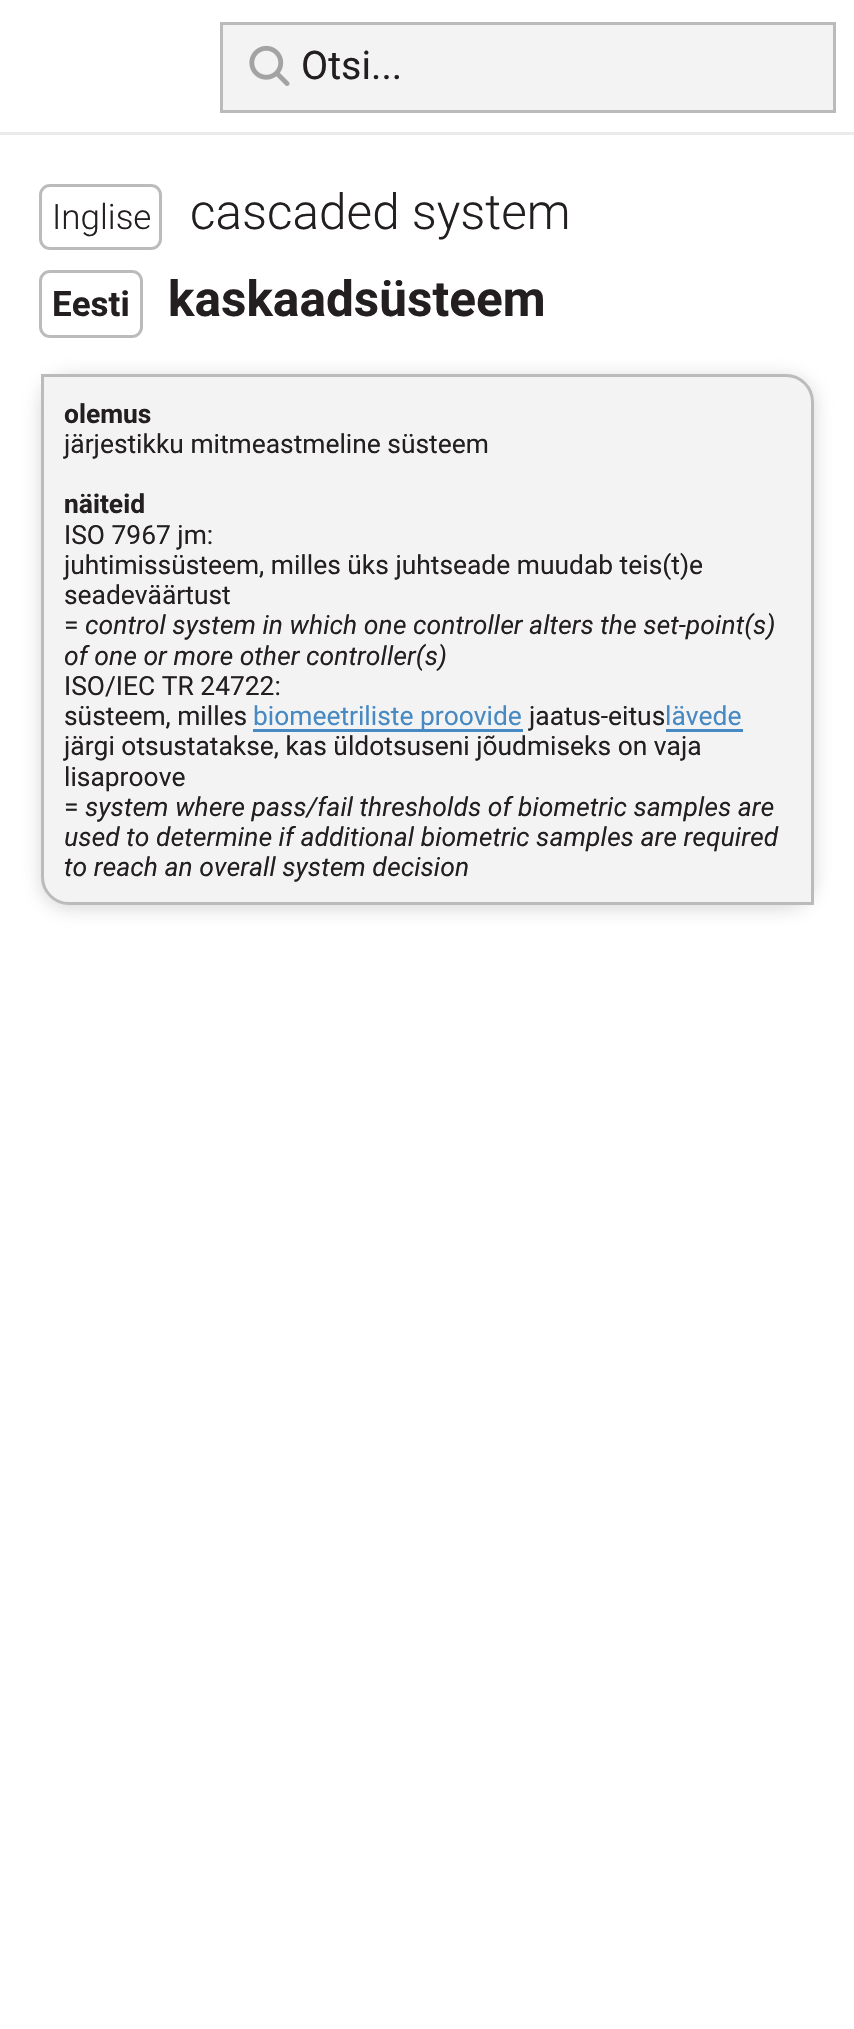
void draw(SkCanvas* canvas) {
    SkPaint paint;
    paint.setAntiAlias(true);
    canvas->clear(0xFFFFFFFF);
    paint.setColor(0xFFEBEBEB);
    canvas->drawRect(SkRect::MakeXYWH(0, 132, 854, 3), paint);
    paint.setColor(0xFFF3F3F3);
    canvas->drawRect(SkRect::MakeXYWH(221.5f, 23.5f, 613, 88), paint);
    paint.setStyle(SkPaint::kStroke_Style);
    paint.setStrokeWidth(3);
    paint.setColor(0xFFBBBBBB);
    canvas->drawRect(SkRect::MakeXYWH(221.5f, 23.5f, 613, 88), paint);
    canvas->drawImageRect(SkImages::DeferredFromEncodedData(SkData::MakeFromFileName("img1.png")), SkRect::MakeXYWH(249, 45, 41, 41), SkSamplingOptions());
    SkFont font1(fontMgr->matchFamilyStyle("Roboto", SkFontStyle::Normal()), 39.5f);
    font1.setSubpixel(true);
    paint.setStyle(SkPaint::kFill_Style);
    paint.setColor(0xFF231F20);
    canvas->drawString("Otsi...", 301, 79, font1, paint);
    SkFont font2(fontMgr->matchFamilyStyle("Roboto", SkFontStyle(300, SkFontStyle::kNormal_Width, SkFontStyle::kUpright_Slant)), 35);
    font2.setSubpixel(true);
    canvas->drawString("Inglise", 52, 229, font2, paint);
    paint.setStyle(SkPaint::kStroke_Style);
    paint.setColor(0xFFBBBBBB);
    canvas->drawRoundRect(SkRect::MakeXYWH(40.5f, 185.5f, 120, 63), 9.5f, 9.5f, paint);
    SkFont font3(fontMgr->matchFamilyStyle("Roboto", SkFontStyle(300, SkFontStyle::kNormal_Width, SkFontStyle::kUpright_Slant)), 49.5f);
    font3.setSubpixel(true);
    paint.setStyle(SkPaint::kFill_Style);
    paint.setColor(0xFF231F20);
    canvas->drawString("cascaded system", 190, 229, font3, paint);
    SkFont font4(fontMgr->matchFamilyStyle("Roboto", SkFontStyle::Bold()), 35);
    font4.setSubpixel(true);
    canvas->drawString("Eesti", 52, 316, font4, paint);
    paint.setStyle(SkPaint::kStroke_Style);
    paint.setColor(0xFFBBBBBB);
    canvas->drawRoundRect(SkRect::MakeXYWH(40.5f, 271.5f, 101, 65), 9.5f, 9.5f, paint);
    SkFont font5(fontMgr->matchFamilyStyle("Roboto", SkFontStyle::Bold()), 49.5f);
    font5.setSubpixel(true);
    paint.setStyle(SkPaint::kFill_Style);
    paint.setColor(0xFF231F20);
    canvas->drawString("kaskaadsüsteem", 168, 316, font5, paint);
    paint.setColor(0xCCCCCCCC);
    paint.setMaskFilter(SkMaskFilter::MakeBlur(kNormal_SkBlurStyle, 9.5f));
    canvas->drawRoundRect(SkRect::MakeXYWH(41, 377, 773, 531), 28, 28, paint);
    paint.setMaskFilter(nullptr);
    paint.setColor(0xFFF3F3F3);
    canvas->drawPath(SkPathBuilder().moveTo(42.5f, 375.5f).lineTo(786, 375.5f).cubicTo(800.5f, 375.5f, 812.5f, 387.5f, 812.5f, 402).lineTo(812.5f, 903.5f).lineTo(69, 903.5f).cubicTo(54.5f, 903.5f, 42.5f, 891.5f, 42.5f, 877).close().detach(), paint);
    paint.setStyle(SkPaint::kStroke_Style);
    paint.setColor(0xFFBBBBBB);
    canvas->drawPath(SkPathBuilder().moveTo(42.5f, 375.5f).lineTo(786, 375.5f).cubicTo(800.5f, 375.5f, 812.5f, 387.5f, 812.5f, 402).lineTo(812.5f, 903.5f).lineTo(69, 903.5f).cubicTo(54.5f, 903.5f, 42.5f, 891.5f, 42.5f, 877).close().detach(), paint);
    SkFont font6(fontMgr->matchFamilyStyle("Roboto", SkFontStyle::Bold()), 26.4f);
    font6.setSubpixel(true);
    paint.setStyle(SkPaint::kFill_Style);
    paint.setColor(0xFF231F20);
    canvas->drawString("olemus", 64, 423, font6, paint);
    SkFont font7(fontMgr->matchFamilyStyle("Roboto", SkFontStyle::Normal()), 26.4f);
    font7.setSubpixel(true);
    canvas->drawString("järjestikku mitmeastmeline süsteem", 64, 453, font7, paint);
    canvas->drawString("näiteid", 64, 513, font6, paint);
    canvas->drawString("ISO 7967 jm:", 64, 544, font7, paint);
    canvas->drawString("juhtimissüsteem, milles üks juhtseade muudab teis(t)e", 64, 574, font7, paint);
    canvas->drawString("seadeväärtust", 64, 604, font7, paint);
    canvas->drawString("=", 64, 634, font7, paint);
    SkFont font8(fontMgr->matchFamilyStyle("Roboto", SkFontStyle::Italic()), 26.4f);
    font8.setSubpixel(true);
    canvas->drawString("control system in which one controller alters the set-point(s)", 85, 634, font8, paint);
    canvas->drawString("of one or more other controller(s)", 64, 665, font8, paint);
    canvas->drawString("ISO/IEC TR 24722:", 64, 695, font7, paint);
    canvas->drawString("süsteem, milles", 64, 725, font7, paint);
    paint.setColor(0xFF4789C2);
    canvas->drawRect(SkRect::MakeXYWH(253, 729, 270, 3), paint);
    canvas->drawString("biomeetriliste proovide", 253, 725, font7, paint);
    paint.setColor(0xFF231F20);
    canvas->drawString("jaatus-eitus", 529, 725, font7, paint);
    paint.setColor(0xFF4789C2);
    canvas->drawString("lävede", 665, 725, font7, paint);
    canvas->drawRect(SkRect::MakeXYWH(666, 729, 77, 3), paint);
    paint.setColor(0xFF231F20);
    canvas->drawString("järgi otsustatakse, kas üldotsuseni jõudmiseks on vaja", 64, 755, font7, paint);
    canvas->drawString("lisaproove", 64, 786, font7, paint);
    canvas->drawString("=", 64, 816, font7, paint);
    canvas->drawString("system where pass/fail thresholds of biometric samples are", 85, 816, font8, paint);
    canvas->drawString("used to determine if additional biometric samples are required", 64, 846, font8, paint);
    canvas->drawString("to reach an overall system decision", 64, 876, font8, paint);
}
